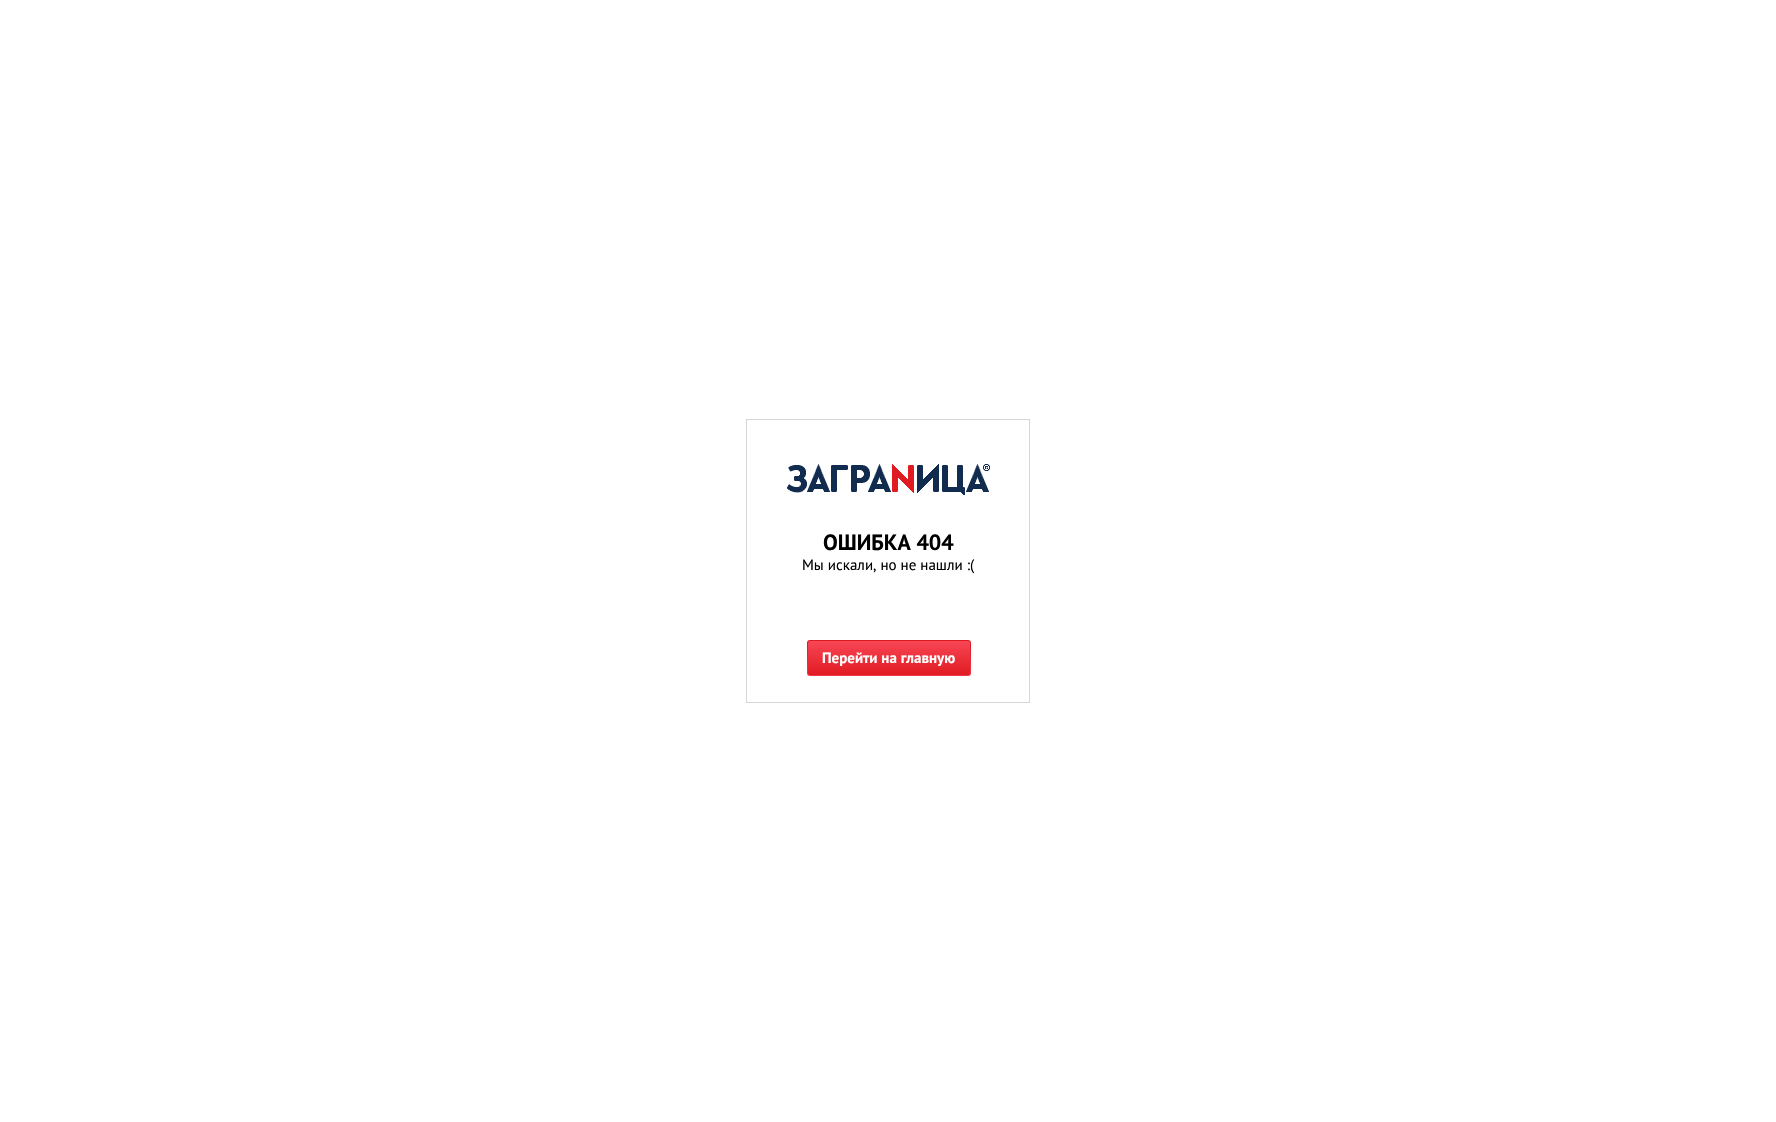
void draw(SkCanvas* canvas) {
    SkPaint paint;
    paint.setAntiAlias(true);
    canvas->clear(0xFFFFFFFF);
    paint.setStyle(SkPaint::kStroke_Style);
    paint.setStrokeWidth(1);
    paint.setColor(0xFFD7D7D7);
    canvas->drawRect(SkRect::MakeXYWH(746.5f, 419.5f, 283, 283), paint);
    canvas->drawImageRect(SkImages::DeferredFromEncodedData(SkData::MakeFromFileName("img1.png")), SkRect::MakeXYWH(787, 464, 203, 31), SkSamplingOptions());
    SkFont font1(fontMgr->matchFamilyStyle("PT Sans", SkFontStyle::Bold()), 22);
    font1.setSubpixel(true);
    paint.setStyle(SkPaint::kFill_Style);
    paint.setColor(0xFF000000);
    canvas->drawString("ОШИБКА 404", 823, 550, font1, paint);
    SkFont font2(fontMgr->matchFamilyStyle("PT Sans", SkFontStyle::Normal()), 15);
    font2.setSubpixel(true);
    canvas->drawString("Мы искали, но не нашли :(", 802, 570, font2, paint);
    {
        const SkColor colors[] = {0xFFEE3B4B, 0xFFD91A20};
        const float stops[] = {0, 1};
        const SkPoint ends[] = {{889, 676}, {889, 640}};
        paint.setShader(SkGradientShader::MakeLinear(ends, colors, stops, 2, SkTileMode::kClamp));
        paint.setAlpha(255);
    }
    canvas->drawRoundRect(SkRect::MakeXYWH(807, 640, 164, 36), 3, 3, paint);
    {
        const SkColor colors[] = {0xFFE11B22, 0xFFF84656};
        const float stops[] = {0, 1};
        const SkPoint ends[] = {{889, 675}, {889, 641}};
        paint.setShader(SkGradientShader::MakeLinear(ends, colors, stops, 2, SkTileMode::kClamp));
        paint.setAlpha(255);
    }
    canvas->drawRoundRect(SkRect::MakeXYWH(808, 641, 162, 34), 2, 2, paint);
    SkFont font3(fontMgr->matchFamilyStyle("PT Sans", SkFontStyle::Bold()), 15);
    font3.setSubpixel(true);
    paint.setShader(nullptr);
    paint.setColor(0xFFFFFFFF);
    canvas->drawString("Перейти на главную", 822, 663, font3, paint);
}
